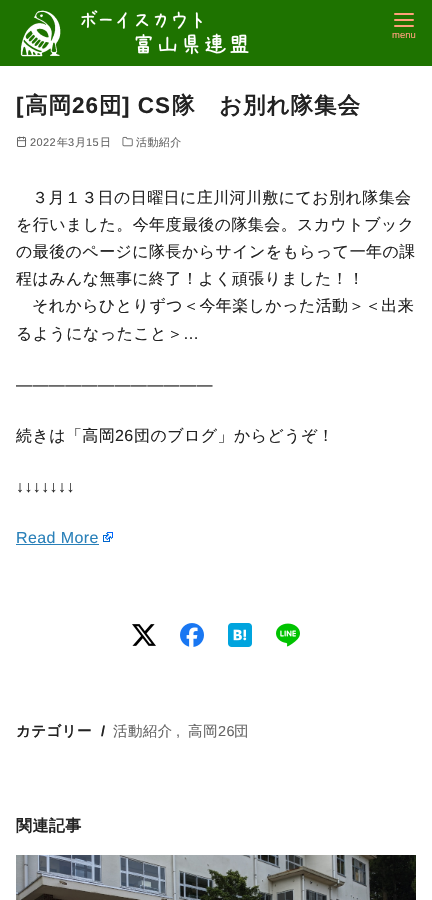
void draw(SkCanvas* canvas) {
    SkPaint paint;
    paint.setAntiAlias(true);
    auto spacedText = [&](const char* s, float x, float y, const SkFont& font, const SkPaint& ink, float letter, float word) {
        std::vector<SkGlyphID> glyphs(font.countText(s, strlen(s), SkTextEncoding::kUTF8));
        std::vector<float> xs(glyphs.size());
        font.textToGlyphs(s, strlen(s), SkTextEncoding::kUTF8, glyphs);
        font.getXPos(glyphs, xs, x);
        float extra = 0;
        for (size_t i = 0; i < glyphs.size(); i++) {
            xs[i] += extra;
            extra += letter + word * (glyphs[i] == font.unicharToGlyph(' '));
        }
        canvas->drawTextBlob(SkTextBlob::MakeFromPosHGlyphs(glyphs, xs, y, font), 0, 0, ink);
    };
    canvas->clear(0xFF1E7300);
    canvas->drawImageRect(SkImages::DeferredFromEncodedData(SkData::MakeFromFileName("img1.png")), SkRect::MakeXYWH(20, 10, 229, 47), SkSamplingOptions());
    paint.setStyle(SkPaint::kStroke_Style);
    paint.setStrokeWidth(2);
    paint.setStrokeCap(SkPaint::kRound_Cap);
    paint.setStrokeJoin(SkPaint::kRound_Join);
    paint.setColor(0xFFFFA07A);
    canvas->drawPath(SkPathBuilder().moveTo(395, 20).lineTo(413, 20).moveTo(395, 14).lineTo(413, 14).moveTo(395, 26).lineTo(413, 26).detach(), paint);
    SkFont font1(fontMgr->matchFamilyStyle("Liberation Sans", SkFontStyle::Normal()), 9.5f);
    font1.setSubpixel(true);
    paint.setStyle(SkPaint::kFill_Style);
    canvas->drawString("menu", 392, 38, font1, paint);
    paint.setColor(0xFFFFFFFF);
    canvas->drawRect(SkRect::MakeXYWH(0, 66, 432, 834), paint);
    SkFont font2(fontMgr->matchFamilyStyle("Liberation Sans", SkFontStyle::Bold()), 22.5f);
    font2.setSubpixel(true);
    paint.setColor(0xFF222222);
    spacedText("[", 16, 113, font2, paint, 1, 0);
    SkFont font3(fontMgr->matchFamilyStyle("WenQuanYi Zen Hei", SkFontStyle::Bold()), 22.5f);
    font3.setSubpixel(true);
    spacedText("高岡", 25, 113, font3, paint, 1, 0);
    spacedText("26", 72, 113, font2, paint, 1, 0);
    spacedText("団", 99, 113, font3, paint, 1, 0);
    spacedText("] CS", 122, 113, font2, paint, 1, 0);
    spacedText("隊　お別れ隊集会", 172, 113, font3, paint, 1, 0);
    canvas->drawImageRect(SkImages::DeferredFromEncodedData(SkData::MakeFromFileName("img2.png")), SkRect::MakeXYWH(17, 136, 10, 11), SkSamplingOptions());
    SkFont font4(fontMgr->matchFamilyStyle("Liberation Sans", SkFontStyle::Normal()), 11);
    font4.setSubpixel(true);
    paint.setColor(0xFF656565);
    spacedText("2022", 30, 146, font4, paint, 0.4f, 0);
    SkFont font5(fontMgr->matchFamilyStyle("WenQuanYi Zen Hei", SkFontStyle(500, SkFontStyle::kNormal_Width, SkFontStyle::kUpright_Slant)), 11);
    font5.setSubpixel(true);
    spacedText("年", 57, 146, font5, paint, 0.4f, 0);
    spacedText("3", 68, 146, font4, paint, 0.4f, 0);
    spacedText("月", 75, 146, font5, paint, 0.4f, 0);
    spacedText("15", 86, 146, font4, paint, 0.4f, 0);
    spacedText("日", 100, 146, font5, paint, 0.4f, 0);
    canvas->drawImageRect(SkImages::DeferredFromEncodedData(SkData::MakeFromFileName("img3.png")), SkRect::MakeXYWH(122, 136, 11, 11), SkSamplingOptions());
    spacedText("活動紹介", 136, 146, font5, paint, 0.4f, 0);
    SkFont font6(fontMgr->matchFamilyStyle("WenQuanYi Zen Hei", SkFontStyle(500, SkFontStyle::kNormal_Width, SkFontStyle::kUpright_Slant)), 16);
    font6.setSubpixel(true);
    paint.setColor(0xFF222222);
    spacedText("３月１３日の日曜日に庄川河川敷にてお別れ隊集会", 32, 203, font6, paint, 0.4f, 0);
    spacedText("を行いました。今年度最後の隊集会。スカウトブック", 16, 230, font6, paint, 0.4f, 0);
    spacedText("の最後のページに隊長からサインをもらって一年の課", 16, 257, font6, paint, 0.4f, 0);
    spacedText("程はみんな無事に終了！よく頑張りました！！", 16, 284, font6, paint, 0.4f, 0);
    spacedText("それからひとりずつ＜今年楽しかった活動＞＜出来", 32, 311, font6, paint, 0.4f, 0);
    spacedText("るようになったこと＞", 16, 339, font6, paint, 0.4f, 0);
    SkFont font7(fontMgr->matchFamilyStyle("Liberation Sans", SkFontStyle::Normal()), 16);
    font7.setSubpixel(true);
    spacedText("…", 183, 339, font7, paint, 0.4f, 0);
    spacedText("————————————", 16, 390, font7, paint, 0.4f, 0);
    spacedText("続きは「高岡", 16, 441, font6, paint, 0.4f, 0);
    spacedText("26", 115, 441, font7, paint, 0.4f, 0);
    spacedText("団のブログ」からどうぞ！", 134, 441, font6, paint, 0.4f, 0);
    spacedText("↓↓↓↓↓↓↓", 16, 492, font7, paint, 0.4f, 0);
    paint.setColor(0xFF2980B9);
    spacedText("Read More", 16, 543, font7, paint, 0.4f, 0);
    canvas->drawRect(SkRect::MakeXYWH(16, 544, 83, 1), paint);
    canvas->drawImageRect(SkImages::DeferredFromEncodedData(SkData::MakeFromFileName("img4.png")), SkRect::MakeXYWH(103, 532, 10, 10), SkSamplingOptions());
    canvas->drawImageRect(SkImages::DeferredFromEncodedData(SkData::MakeFromFileName("img5.png")), SkRect::MakeXYWH(132, 624, 24, 22), SkSamplingOptions());
    canvas->drawImageRect(SkImages::DeferredFromEncodedData(SkData::MakeFromFileName("img6.png")), SkRect::MakeXYWH(180, 623, 24, 24), SkSamplingOptions());
    canvas->drawImageRect(SkImages::DeferredFromEncodedData(SkData::MakeFromFileName("img7.png")), SkRect::MakeXYWH(228, 623, 24, 24), SkSamplingOptions());
    canvas->drawImageRect(SkImages::DeferredFromEncodedData(SkData::MakeFromFileName("img8.png")), SkRect::MakeXYWH(276, 623, 24, 24), SkSamplingOptions());
    SkFont font8(fontMgr->matchFamilyStyle("WenQuanYi Zen Hei", SkFontStyle::Bold()), 14.5f);
    font8.setSubpixel(true);
    paint.setColor(0xFF222222);
    spacedText("カテゴリー", 16, 736, font8, paint, 0.4f, 0);
    SkFont font9(fontMgr->matchFamilyStyle("Liberation Sans", SkFontStyle::Bold()), 14.5f);
    font9.setSubpixel(true);
    spacedText("/", 101, 736, font9, paint, 0.4f, 0);
    SkFont font10(fontMgr->matchFamilyStyle("WenQuanYi Zen Hei", SkFontStyle(500, SkFontStyle::kNormal_Width, SkFontStyle::kUpright_Slant)), 14.5f);
    font10.setSubpixel(true);
    paint.setColor(0xFF656565);
    spacedText("活動紹介", 113, 736, font10, paint, 0.4f, 0);
    SkFont font11(fontMgr->matchFamilyStyle("Liberation Sans", SkFontStyle::Normal()), 14.5f);
    font11.setSubpixel(true);
    spacedText(",", 176, 736, font11, paint, 0.4f, 0);
    spacedText("高岡", 188, 736, font10, paint, 0.4f, 0);
    spacedText("26", 218, 736, font11, paint, 0.4f, 0);
    spacedText("団", 234, 736, font10, paint, 0.4f, 0);
    SkFont font12(fontMgr->matchFamilyStyle("WenQuanYi Zen Hei", SkFontStyle::Bold()), 16);
    font12.setSubpixel(true);
    paint.setColor(0xFF222222);
    spacedText("関連記事", 16, 831, font12, paint, 0.4f, 0);
    canvas->drawImageRect(SkImages::DeferredFromEncodedData(SkData::MakeFromFileName("img9.png")), SkRect::MakeXYWH(16, 855, 400, 45), SkSamplingOptions());
}
